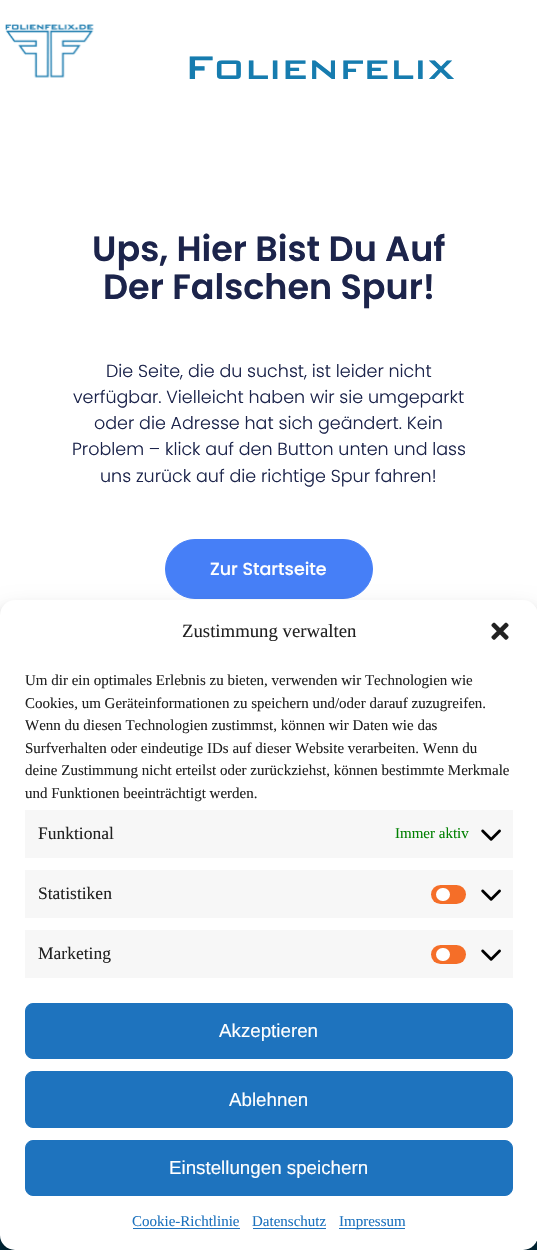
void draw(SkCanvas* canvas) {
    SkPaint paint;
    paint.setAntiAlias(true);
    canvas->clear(0xFFFFFFFF);
    canvas->drawImageRect(SkImages::DeferredFromEncodedData(SkData::MakeFromFileName("img1.png")), SkRect::MakeXYWH(5, 24, 89, 54), SkSamplingOptions());
    SkFont font1(fontMgr->matchFamilyStyle("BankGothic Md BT", SkFontStyle(500, SkFontStyle::kNormal_Width, SkFontStyle::kUpright_Slant)), 43.75f);
    font1.setSubpixel(true);
    paint.setColor(0xFF167CAF);
    canvas->drawString("Folienfelix", 184, 79, font1, paint);
    SkFont font2(fontMgr->matchFamilyStyle("Poppins", SkFontStyle(600, SkFontStyle::kNormal_Width, SkFontStyle::kUpright_Slant)), 35);
    font2.setSubpixel(true);
    paint.setColor(0xFF1C244B);
    canvas->drawString("Ups, Hier Bist Du Auf", 92, 261, font2, paint);
    canvas->drawString("Der Falschen Spur!", 103, 299, font2, paint);
    SkFont font3(fontMgr->matchFamilyStyle("Poppins", SkFontStyle(300, SkFontStyle::kNormal_Width, SkFontStyle::kUpright_Slant)), 17.5f);
    font3.setSubpixel(true);
    canvas->drawString("Die Seite, die du suchst, ist leider nicht", 106, 377, font3, paint);
    canvas->drawString("verfügbar. Vielleicht haben wir sie umgeparkt", 73, 403, font3, paint);
    canvas->drawString("oder die Adresse hat sich geändert. Kein", 94, 429, font3, paint);
    canvas->drawString("Problem – klick auf den Button unten und lass", 72, 455, font3, paint);
    canvas->drawString("uns zurück auf die richtige Spur fahren!", 100, 482, font3, paint);
    paint.setColor(0xFF467FF7);
    canvas->drawRoundRect(SkRect::MakeXYWH(165.5f, 539.5f, 207, 59), 29.5f, 29.5f, paint);
    paint.setStyle(SkPaint::kStroke_Style);
    paint.setStrokeWidth(1);
    canvas->drawRoundRect(SkRect::MakeXYWH(165.5f, 539.5f, 207, 59), 29.5f, 29.5f, paint);
    SkFont font4(fontMgr->matchFamilyStyle("Poppins", SkFontStyle(500, SkFontStyle::kNormal_Width, SkFontStyle::kUpright_Slant)), 17.5f);
    font4.setSubpixel(true);
    paint.setStyle(SkPaint::kFill_Style);
    paint.setColor(0xFFFFFFFF);
    canvas->drawString("Zur Startseite", 210, 575, font4, paint);
    paint.setColor(0xFF002D40);
    canvas->drawRect(SkRect::MakeXYWH(0, 1235, 537, 15), paint);
    paint.setColor(0x3B000000);
    paint.setMaskFilter(SkMaskFilter::MakeBlur(kNormal_SkBlurStyle, 4));
    canvas->drawRoundRect(SkRect::MakeXYWH(0, 608, 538, 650), 15, 15, paint);
    paint.setMaskFilter(nullptr);
    paint.setColor(0x30000000);
    paint.setMaskFilter(SkMaskFilter::MakeBlur(kNormal_SkBlurStyle, 12.5f));
    canvas->drawRoundRect(SkRect::MakeXYWH(0, 613, 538, 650), 15, 15, paint);
    paint.setMaskFilter(nullptr);
    paint.setColor(0xFFFFFFFF);
    canvas->drawRoundRect(SkRect::MakeXYWH(0, 600, 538, 650), 15, 15, paint);
    SkFont font5(fontMgr->matchFamilyStyle("Liberation Serif", SkFontStyle::Normal()), 18.75f);
    font5.setSubpixel(true);
    paint.setColor(0xFF222222);
    canvas->drawString("Zustimmung verwalten", 182, 637, font5, paint);
    canvas->drawImageRect(SkImages::DeferredFromEncodedData(SkData::MakeFromFileName("img2.png")), SkRect::MakeXYWH(491, 622, 18, 18), SkSamplingOptions());
    SkFont font6(fontMgr->matchFamilyStyle("Liberation Serif", SkFontStyle::Normal()), 15);
    font6.setSubpixel(true);
    canvas->drawString("Um dir ein optimales Erlebnis zu bieten, verwenden wir Technologien wie", 25, 685, font6, paint);
    canvas->drawString("Cookies, um Geräteinformationen zu speichern und/oder darauf zuzugreifen.", 25, 708, font6, paint);
    canvas->drawString("Wenn du diesen Technologien zustimmst, können wir Daten wie das", 25, 730, font6, paint);
    canvas->drawString("Surfverhalten oder eindeutige IDs auf dieser Website verarbeiten. Wenn du", 25, 753, font6, paint);
    canvas->drawString("deine Zustimmung nicht erteilst oder zurückziehst, können bestimmte Merkmale", 25, 775, font6, paint);
    canvas->drawString("und Funktionen beeinträchtigt werden.", 25, 798, font6, paint);
    paint.setColor(0xFFF7F7F7);
    canvas->drawRect(SkRect::MakeXYWH(25, 810, 488, 48), paint);
    SkFont font7(fontMgr->matchFamilyStyle("Liberation Serif", SkFontStyle::Normal()), 17.5f);
    font7.setSubpixel(true);
    paint.setColor(0xFF222222);
    canvas->drawString("Funktional", 38, 839, font7, paint);
    paint.setColor(0xFF008000);
    canvas->drawString("Immer aktiv", 395, 838, font6, paint);
    canvas->drawImageRect(SkImages::DeferredFromEncodedData(SkData::MakeFromFileName("img3.png")), SkRect::MakeXYWH(481, 829, 20, 12), SkSamplingOptions());
    paint.setColor(0xFFF7F7F7);
    canvas->drawRect(SkRect::MakeXYWH(25, 870, 488, 48), paint);
    paint.setColor(0xFF222222);
    canvas->drawString("Statistiken", 38, 899, font7, paint);
    paint.setColor(0xFFF56E28);
    canvas->drawRoundRect(SkRect::MakeXYWH(431, 885, 35, 19), 9.5f, 9.5f, paint);
    paint.setColor(0xFFFFFFFF);
    canvas->drawRoundRect(SkRect::MakeXYWH(436, 888, 14, 13), 6.5f, 6.5f, paint);
    canvas->drawImageRect(SkImages::DeferredFromEncodedData(SkData::MakeFromFileName("img3.png")), SkRect::MakeXYWH(481, 889, 20, 12), SkSamplingOptions());
    paint.setColor(0xFFF7F7F7);
    canvas->drawRect(SkRect::MakeXYWH(25, 930, 488, 48), paint);
    paint.setColor(0xFF222222);
    canvas->drawString("Marketing", 38, 959, font7, paint);
    paint.setColor(0xFFF56E28);
    canvas->drawRoundRect(SkRect::MakeXYWH(431, 945, 35, 19), 9.5f, 9.5f, paint);
    paint.setColor(0xFFFFFFFF);
    canvas->drawRoundRect(SkRect::MakeXYWH(436, 948, 14, 13), 6.5f, 6.5f, paint);
    canvas->drawImageRect(SkImages::DeferredFromEncodedData(SkData::MakeFromFileName("img3.png")), SkRect::MakeXYWH(481, 949, 20, 12), SkSamplingOptions());
    paint.setColor(0xFF1E73BE);
    canvas->drawRoundRect(SkRect::MakeXYWH(25.5f, 1003.5f, 487, 55), 7.5f, 7.5f, paint);
    paint.setStyle(SkPaint::kStroke_Style);
    canvas->drawRoundRect(SkRect::MakeXYWH(25.5f, 1003.5f, 487, 55), 7.5f, 7.5f, paint);
    SkFont font8(fontMgr->matchFamilyStyle("Liberation Sans", SkFontStyle::Normal()), 18.75f);
    font8.setSubpixel(true);
    paint.setStyle(SkPaint::kFill_Style);
    paint.setColor(0xFFFFFFFF);
    canvas->drawString("Akzeptieren", 219, 1037, font8, paint);
    paint.setColor(0xFF1E73BE);
    canvas->drawRoundRect(SkRect::MakeXYWH(25.5f, 1071.5f, 487, 56), 7.5f, 7.5f, paint);
    paint.setStyle(SkPaint::kStroke_Style);
    canvas->drawRoundRect(SkRect::MakeXYWH(25.5f, 1071.5f, 487, 56), 7.5f, 7.5f, paint);
    paint.setStyle(SkPaint::kFill_Style);
    paint.setColor(0xFFFFFFFF);
    canvas->drawString("Ablehnen", 229, 1106, font8, paint);
    paint.setColor(0xFF1E73BE);
    canvas->drawRoundRect(SkRect::MakeXYWH(25.5f, 1140.5f, 487, 55), 7.5f, 7.5f, paint);
    paint.setStyle(SkPaint::kStroke_Style);
    canvas->drawRoundRect(SkRect::MakeXYWH(25.5f, 1140.5f, 487, 55), 7.5f, 7.5f, paint);
    paint.setStyle(SkPaint::kFill_Style);
    paint.setColor(0xFFFFFFFF);
    canvas->drawString("Einstellungen speichern", 169, 1174, font8, paint);
    paint.setColor(0xFF1E73BE);
    canvas->drawString("Cookie-Richtlinie", 132, 1226, font6, paint);
    canvas->drawRect(SkRect::MakeXYWH(133, 1228, 107, 1), paint);
    canvas->drawString("Datenschutz", 252, 1226, font6, paint);
    canvas->drawRect(SkRect::MakeXYWH(253, 1228, 73, 1), paint);
    canvas->drawRect(SkRect::MakeXYWH(339, 1228, 66, 1), paint);
    canvas->drawString("Impressum", 339, 1226, font6, paint);
}
